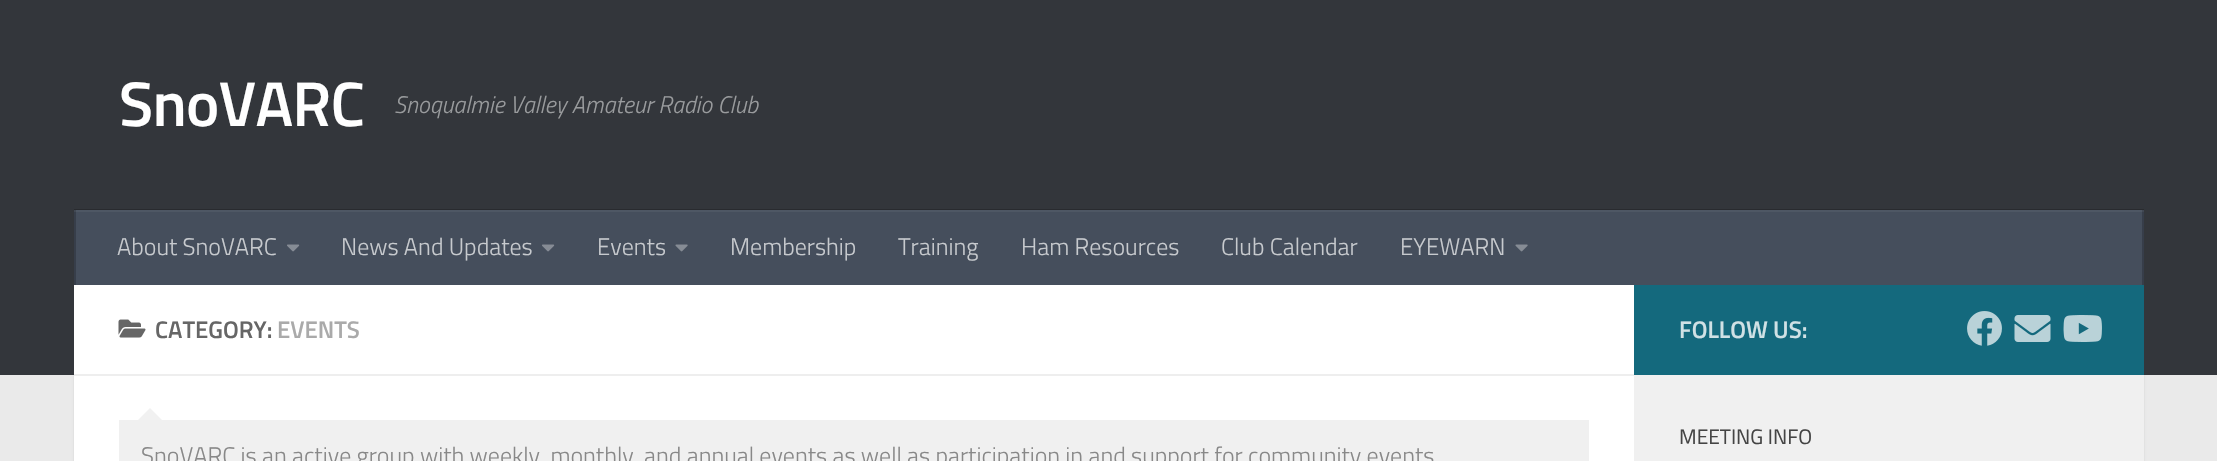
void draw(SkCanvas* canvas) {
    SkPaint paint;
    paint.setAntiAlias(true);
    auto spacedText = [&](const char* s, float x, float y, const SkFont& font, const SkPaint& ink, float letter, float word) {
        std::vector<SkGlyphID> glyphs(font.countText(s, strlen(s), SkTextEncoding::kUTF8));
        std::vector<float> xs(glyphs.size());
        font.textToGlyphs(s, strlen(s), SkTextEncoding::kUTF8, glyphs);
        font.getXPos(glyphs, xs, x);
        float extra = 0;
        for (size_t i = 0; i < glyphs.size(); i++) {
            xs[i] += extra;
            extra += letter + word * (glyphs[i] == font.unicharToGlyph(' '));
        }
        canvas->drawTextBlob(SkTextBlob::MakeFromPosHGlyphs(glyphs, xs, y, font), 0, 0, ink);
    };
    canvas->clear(0xFFEAEAEA);
    paint.setColor(0x1A000000);
    paint.setMaskFilter(SkMaskFilter::MakeBlur(kNormal_SkBlurStyle, 1));
    canvas->drawRect(SkRect::MakeXYWH(74, 287, 2070, 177), paint);
    paint.setMaskFilter(nullptr);
    paint.setColor(0xFF33363B);
    canvas->drawRect(SkRect::MakeXYWH(0, 0, 2217, 375), paint);
    SkFont font1(fontMgr->matchFamilyStyle("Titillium", SkFontStyle(600, SkFontStyle::kNormal_Width, SkFontStyle::kUpright_Slant)), 63);
    font1.setSubpixel(true);
    paint.setColor(0xFFFFFFFF);
    spacedText("SnoVARC", 119, 126, font1, paint, -0.75f, 0);
    SkFont font2(fontMgr->matchFamilyStyle("Titillium", SkFontStyle(300, SkFontStyle::kNormal_Width, SkFontStyle::kItalic_Slant)), 24);
    font2.setSubpixel(true);
    paint.setColor(0xFF999B9D);
    canvas->drawString("Snoqualmie Valley Amateur Radio Club", 394, 113, font2, paint);
    paint.setColor(0xFF292B2F);
    canvas->drawPath(SkPathBuilder().moveTo(74, 209).lineTo(74, 210).lineTo(2144, 210).lineTo(2144, 284).lineTo(2144, 209).close().detach(), paint);
    paint.setColor(0xFF454E5C);
    canvas->drawRect(SkRect::MakeXYWH(76, 212, 2066, 73), paint);
    paint.setColor(0xFF4E5764);
    canvas->drawRect(SkRect::MakeXYWH(74, 210, 2070, 2), paint);
    paint.setColor(0xFF373E4A);
    canvas->drawRect(SkRect::MakeXYWH(2142, 210, 2, 75), paint);
    paint.setColor(0xFF414853);
    canvas->drawRect(SkRect::MakeXYWH(2142, 210, 2, 2), paint);
    paint.setColor(0xFF373E4A);
    canvas->drawRect(SkRect::MakeXYWH(74, 210, 2, 75), paint);
    paint.setColor(0xFF414853);
    canvas->drawRect(SkRect::MakeXYWH(74, 210, 2, 2), paint);
    SkFont font3(fontMgr->matchFamilyStyle("Titillium", SkFontStyle(300, SkFontStyle::kNormal_Width, SkFontStyle::kUpright_Slant)), 24);
    font3.setSubpixel(true);
    paint.setColor(0xFFC7CACE);
    canvas->drawString("About SnoVARC", 117, 255, font3, paint);
    canvas->drawImageRect(SkImages::DeferredFromEncodedData(SkData::MakeFromFileName("img1.png")), SkRect::MakeXYWH(287, 244, 13, 8), SkSamplingOptions());
    canvas->drawString("News And Updates", 341, 255, font3, paint);
    canvas->drawImageRect(SkImages::DeferredFromEncodedData(SkData::MakeFromFileName("img1.png")), SkRect::MakeXYWH(542, 244, 13, 8), SkSamplingOptions());
    canvas->drawString("Events", 597, 255, font3, paint);
    canvas->drawImageRect(SkImages::DeferredFromEncodedData(SkData::MakeFromFileName("img2.png")), SkRect::MakeXYWH(675, 244, 13, 8), SkSamplingOptions());
    canvas->drawString("Membership", 730, 255, font3, paint);
    canvas->drawString("Training", 898, 255, font3, paint);
    canvas->drawString("Ham Resources", 1021, 255, font3, paint);
    canvas->drawString("Club Calendar", 1221, 255, font3, paint);
    canvas->drawString("EYEWARN", 1400, 255, font3, paint);
    canvas->drawImageRect(SkImages::DeferredFromEncodedData(SkData::MakeFromFileName("img2.png")), SkRect::MakeXYWH(1515, 244, 13, 8), SkSamplingOptions());
    paint.setColor(0xFFFFFFFF);
    canvas->drawRect(SkRect::MakeXYWH(74, 285, 1560, 176), paint);
    paint.setColor(0xFFEEEEEE);
    canvas->drawRect(SkRect::MakeXYWH(74, 374, 1560, 2), paint);
    canvas->drawImageRect(SkImages::DeferredFromEncodedData(SkData::MakeFromFileName("img3.png")), SkRect::MakeXYWH(118, 319, 28, 19), SkSamplingOptions());
    SkFont font4(fontMgr->matchFamilyStyle("Titillium", SkFontStyle(600, SkFontStyle::kNormal_Width, SkFontStyle::kUpright_Slant)), 24);
    font4.setSubpixel(true);
    paint.setColor(0xFF666666);
    canvas->drawString("CATEGORY:", 155, 338, font4, paint);
    paint.setColor(0xFFAAAAAA);
    canvas->drawString("EVENTS", 277, 338, font4, paint);
    paint.setColor(0xFFF0F0F0);
    canvas->drawRect(SkRect::MakeXYWH(119, 420, 1470, 41), paint);
    paint.setColor(0xFFF1F1F1);
    canvas->drawPath(SkPathBuilder().moveTo(162, 420).lineTo(138, 420).lineTo(150, 408).close().detach(), paint);
    paint.setColor(0xFF888888);
    canvas->drawString("SnoVARC is an active group with weekly, monthly, and annual events as well as participation in and support for community events", 141, 464, font3, paint);
    paint.setColor(0xFF14697D);
    canvas->drawRect(SkRect::MakeXYWH(1634, 285, 510, 90), paint);
    paint.setColor(0xFFD0E1E5);
    canvas->drawString("FOLLOW US:", 1679, 338, font4, paint);
    canvas->drawImageRect(SkImages::DeferredFromEncodedData(SkData::MakeFromFileName("img4.png")), SkRect::MakeXYWH(1967, 311, 35, 35), SkSamplingOptions());
    canvas->drawImageRect(SkImages::DeferredFromEncodedData(SkData::MakeFromFileName("img5.png")), SkRect::MakeXYWH(2014, 315, 37, 27), SkSamplingOptions());
    canvas->drawImageRect(SkImages::DeferredFromEncodedData(SkData::MakeFromFileName("img6.png")), SkRect::MakeXYWH(2063, 315, 39, 27), SkSamplingOptions());
    paint.setColor(0xFFF0F0F0);
    canvas->drawRect(SkRect::MakeXYWH(1634, 375, 510, 86), paint);
    SkFont font5(fontMgr->matchFamilyStyle("Titillium", SkFontStyle::Normal()), 21);
    font5.setSubpixel(true);
    paint.setColor(0xFF444444);
    canvas->drawString("MEETING INFO", 1679, 444, font5, paint);
}
